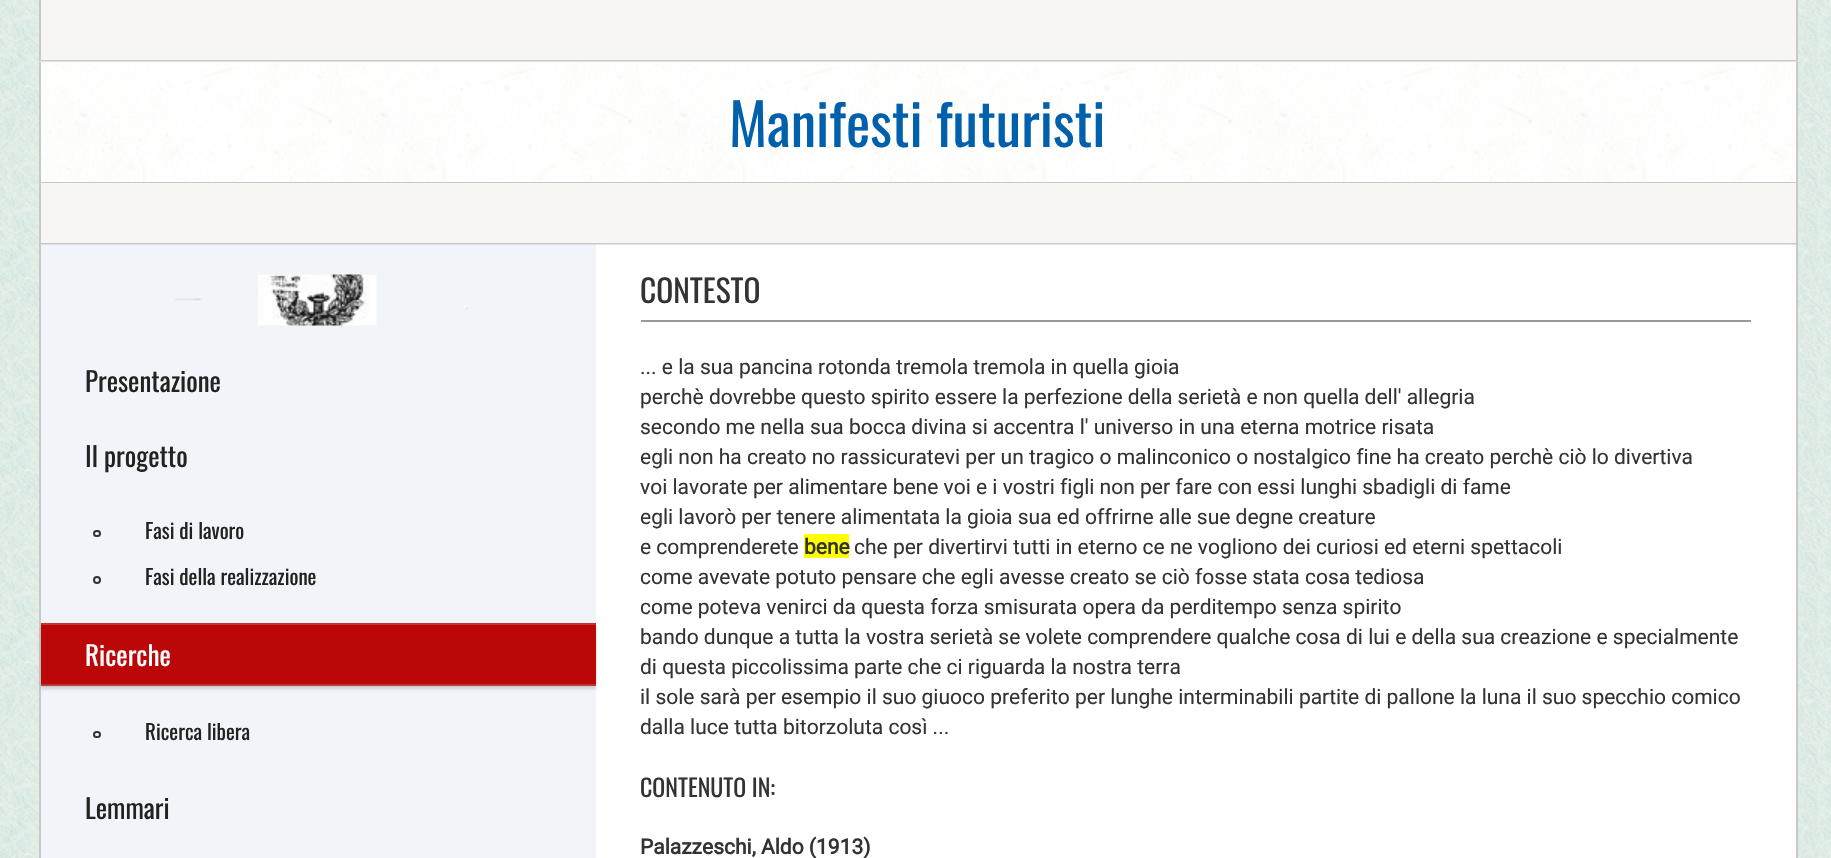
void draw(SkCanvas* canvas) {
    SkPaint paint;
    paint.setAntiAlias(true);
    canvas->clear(0xFFFFFFFF);
    canvas->drawImageRect(SkImages::DeferredFromEncodedData(SkData::MakeFromFileName("img1.png")), SkRect::MakeXYWH(0, 0, 1831, 858), SkSamplingOptions());
    paint.setColor(0xFFF8F6F2);
    canvas->drawRect(SkRect::MakeXYWH(41, 0, 1755, 60), paint);
    paint.setColor(0xFFC9C9C9);
    canvas->drawRect(SkRect::MakeXYWH(1796, 0, 2, 62), paint);
    canvas->drawRect(SkRect::MakeXYWH(39, 60, 1758, 2), paint);
    canvas->drawRect(SkRect::MakeXYWH(39, 0, 2, 62), paint);
    canvas->drawImageRect(SkImages::DeferredFromEncodedData(SkData::MakeFromFileName("img2.png")), SkRect::MakeXYWH(39, 61, 1758, 121), SkSamplingOptions());
    canvas->drawRect(SkRect::MakeXYWH(1796, 62, 2, 796), paint);
    canvas->drawRect(SkRect::MakeXYWH(39, 182, 1758, 1), paint);
    canvas->drawRect(SkRect::MakeXYWH(39, 62, 2, 121), paint);
    SkFont font1(fontMgr->matchFamilyStyle("Oswald", SkFontStyle::Normal()), 57.75f);
    font1.setSubpixel(true);
    paint.setColor(0xFF0060AC);
    canvas->drawString("Manifesti futuristi", 729, 147, font1, paint);
    paint.setColor(0xFFF8F6F2);
    canvas->drawRect(SkRect::MakeXYWH(41, 183, 1755, 60), paint);
    paint.setColor(0xFFC9C9C9);
    canvas->drawRect(SkRect::MakeXYWH(39, 243, 1758, 2), paint);
    canvas->drawRect(SkRect::MakeXYWH(39, 183, 2, 62), paint);
    paint.setColor(0xFFFFFFFF);
    canvas->drawRect(SkRect::MakeXYWH(1795, 245, 1, 613), paint);
    canvas->drawImageRect(SkImages::DeferredFromEncodedData(SkData::MakeFromFileName("img3.png")), SkRect::MakeXYWH(40, 244, 1756, 614), SkSamplingOptions());
    paint.setColor(0xFFC9C9C9);
    canvas->drawRect(SkRect::MakeXYWH(39, 245, 2, 613), paint);
    paint.setColor(0xFFF1F4F9);
    canvas->drawRect(SkRect::MakeXYWH(595, 245, 1, 613), paint);
    canvas->drawImageRect(SkImages::DeferredFromEncodedData(SkData::MakeFromFileName("img4.png")), SkRect::MakeXYWH(173, 274, 295, 52), SkSamplingOptions());
    SkFont font2(fontMgr->matchFamilyStyle("Oswald", SkFontStyle::Normal()), 27);
    font2.setSubpixel(true);
    paint.setColor(0xFF212221);
    canvas->drawString("Presentazione", 85, 392, font2, paint);
    canvas->drawString("Il progetto", 85, 467, font2, paint);
    paint.setStyle(SkPaint::kStroke_Style);
    paint.setStrokeWidth(2);
    paint.setColor(0xFF333333);
    canvas->drawRoundRect(SkRect::MakeXYWH(94, 531, 6, 5), 2.5f, 2.5f, paint);
    SkFont font3(fontMgr->matchFamilyStyle("Oswald", SkFontStyle::Normal()), 21);
    font3.setSubpixel(true);
    paint.setStyle(SkPaint::kFill_Style);
    paint.setColor(0xFF212221);
    canvas->drawString("Fasi di lavoro", 145, 539, font3, paint);
    paint.setStyle(SkPaint::kStroke_Style);
    paint.setColor(0xFF333333);
    canvas->drawCircle(97, 580, 3, paint);
    paint.setStyle(SkPaint::kFill_Style);
    paint.setColor(0xFF212221);
    canvas->drawString("Fasi della realizzazione", 145, 585, font3, paint);
    paint.setColor(0x26000000);
    paint.setMaskFilter(SkMaskFilter::MakeBlur(kNormal_SkBlurStyle, 1.5f));
    canvas->drawRect(SkRect::MakeXYWH(41, 626, 555, 63), paint);
    paint.setMaskFilter(nullptr);
    paint.setColor(0xFFBB0707);
    canvas->drawRect(SkRect::MakeXYWH(41, 625, 555, 59), paint);
    paint.setColor(0xFFBD362F);
    canvas->drawRect(SkRect::MakeXYWH(41, 623, 555, 2), paint);
    canvas->drawRect(SkRect::MakeXYWH(41, 684, 555, 2), paint);
    paint.setColor(0xFFFFFFFF);
    canvas->drawString("Ricerche", 85, 666, font2, paint);
    paint.setStyle(SkPaint::kStroke_Style);
    paint.setColor(0xFF333333);
    canvas->drawRoundRect(SkRect::MakeXYWH(94, 732, 6, 5), 2.5f, 2.5f, paint);
    paint.setStyle(SkPaint::kFill_Style);
    paint.setColor(0xFF212221);
    canvas->drawString("Ricerca libera", 145, 740, font3, paint);
    canvas->drawString("Lemmari", 85, 819, font2, paint);
    paint.setColor(0xFF999999);
    canvas->drawRect(SkRect::MakeXYWH(641, 320, 1110, 2), paint);
    SkFont font4(fontMgr->matchFamilyStyle("Oswald", SkFontStyle::Normal()), 31.5f);
    font4.setSubpixel(true);
    paint.setColor(0xFF333333);
    canvas->drawString("CONTESTO", 640, 303, font4, paint);
    SkFont font5(fontMgr->matchFamilyStyle("Roboto", SkFontStyle::Normal()), 21);
    font5.setSubpixel(true);
    canvas->drawString("... e la sua pancina rotonda tremola tremola in quella gioia", 640, 374, font5, paint);
    canvas->drawString("perchè dovrebbe questo spirito essere la perfezione della serietà e non quella dell' allegria", 640, 404, font5, paint);
    canvas->drawString("secondo me nella sua bocca divina si accentra l' universo in una eterna motrice risata", 640, 434, font5, paint);
    canvas->drawString("egli non ha creato no rassicuratevi per un tragico o malinconico o nostalgico fine ha creato perchè ciò lo divertiva", 640, 464, font5, paint);
    canvas->drawString("voi lavorate per alimentare bene voi e i vostri figli non per fare con essi lunghi sbadigli di fame", 640, 494, font5, paint);
    canvas->drawString("egli lavorò per tenere alimentata la gioia sua ed offrirne alle sue degne creature", 640, 524, font5, paint);
    canvas->drawString("e comprenderete", 640, 554, font5, paint);
    paint.setColor(0xFFFFFF00);
    canvas->drawRect(SkRect::MakeXYWH(804, 534, 45, 24), paint);
    SkFont font6(fontMgr->matchFamilyStyle("Roboto", SkFontStyle::Bold()), 21);
    font6.setSubpixel(true);
    paint.setColor(0xFF333333);
    canvas->drawString("bene", 804, 554, font6, paint);
    canvas->drawString("che per divertirvi tutti in eterno ce ne vogliono dei curiosi ed eterni spettacoli", 854, 554, font5, paint);
    canvas->drawString("come avevate potuto pensare che egli avesse creato se ciò fosse stata cosa tediosa", 640, 584, font5, paint);
    canvas->drawString("come poteva venirci da questa forza smisurata opera da perditempo senza spirito", 640, 614, font5, paint);
    canvas->drawString("bando dunque a tutta la vostra serietà se volete comprendere qualche cosa di lui e della sua creazione e specialmente", 640, 644, font5, paint);
    canvas->drawString("di questa piccolissima parte che ci riguarda la nostra terra", 640, 674, font5, paint);
    canvas->drawString("il sole sarà per esempio il suo giuoco preferito per lunghe interminabili partite di pallone la luna il suo specchio comico", 640, 704, font5, paint);
    canvas->drawString("dalla luce tutta bitorzoluta così ...", 640, 734, font5, paint);
    SkFont font7(fontMgr->matchFamilyStyle("Oswald", SkFontStyle::Normal()), 24);
    font7.setSubpixel(true);
    canvas->drawString("CONTENUTO IN:", 640, 797, font7, paint);
    canvas->drawString("Palazzeschi, Aldo (1913)", 640, 854, font6, paint);
}
